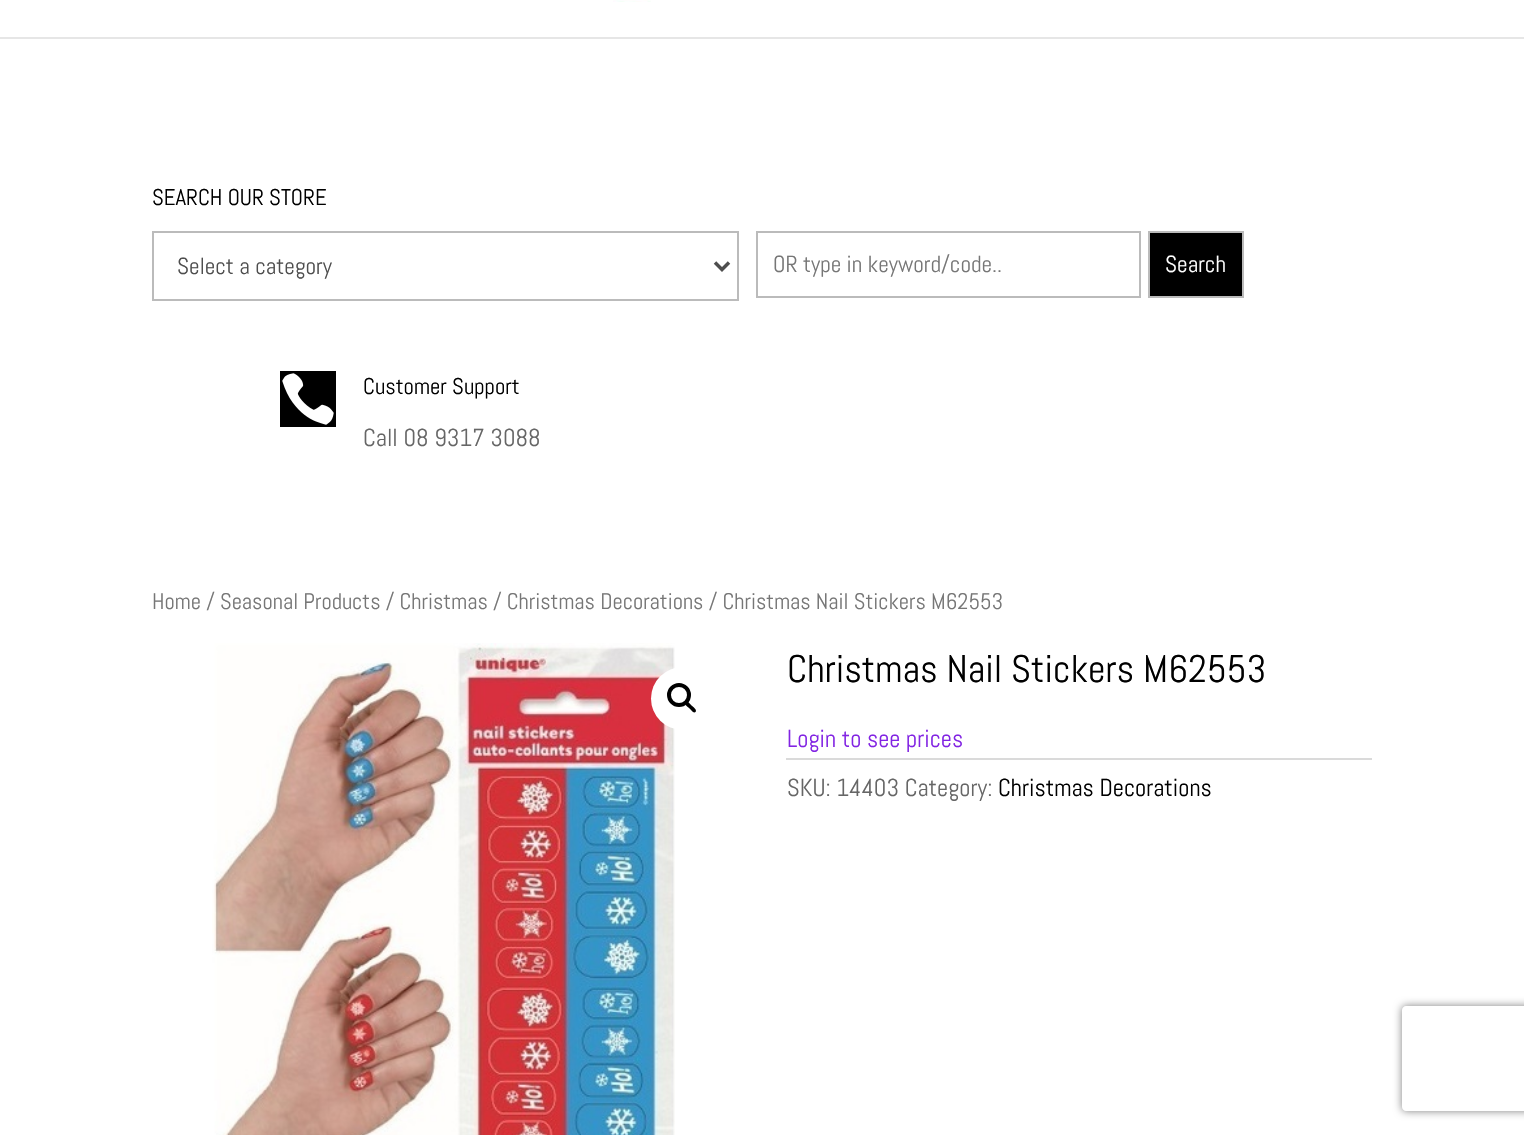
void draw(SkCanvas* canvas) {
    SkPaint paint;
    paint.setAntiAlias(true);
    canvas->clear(0xFFFFFFFF);
    paint.setColor(0xFFE6E6E6);
    canvas->drawRect(SkRect::MakeXYWH(0, 37, 1524, 2), paint);
    canvas->drawImageRect(SkImages::DeferredFromEncodedData(SkData::MakeFromFileName("img1.png")), SkRect::MakeXYWH(613, 0, 38, 2), SkSamplingOptions());
    SkFont font1(fontMgr->matchFamilyStyle("Abel", SkFontStyle::Normal()), 22.75f);
    font1.setSubpixel(true);
    paint.setColor(0xFF000000);
    canvas->drawString("SEARCH OUR STORE", 152, 205, font1, paint);
    paint.setStyle(SkPaint::kStroke_Style);
    paint.setStrokeWidth(2);
    paint.setColor(0xFFBBBBBB);
    canvas->drawRect(SkRect::MakeXYWH(153, 232, 585, 68), paint);
    paint.setStrokeWidth(3.5f);
    paint.setColor(0xFF4E4E4E);
    canvas->drawPath(SkPathBuilder().moveTo(715, 262.5f).lineTo(722, 269.5f).lineTo(729, 262.5f).detach(), paint);
    SkFont font2(fontMgr->matchFamilyStyle("Abel", SkFontStyle::Normal()), 23.25f);
    font2.setSubpixel(true);
    paint.setStyle(SkPaint::kFill_Style);
    canvas->drawString("Select a category", 177, 274, font2, paint);
    paint.setStyle(SkPaint::kStroke_Style);
    paint.setStrokeWidth(2);
    paint.setColor(0xFFBBBBBB);
    canvas->drawRect(SkRect::MakeXYWH(757, 232, 383, 65), paint);
    paint.setStyle(SkPaint::kFill_Style);
    paint.setColor(0xFF767676);
    canvas->drawString("OR type in keyword/code..", 773, 272, font2, paint);
    paint.setColor(0xFF000000);
    canvas->drawRect(SkRect::MakeXYWH(1149, 232, 94, 65), paint);
    paint.setStyle(SkPaint::kStroke_Style);
    paint.setColor(0xFFBBBBBB);
    canvas->drawRect(SkRect::MakeXYWH(1149, 232, 94, 65), paint);
    paint.setStyle(SkPaint::kFill_Style);
    paint.setColor(0xFFFFFFFF);
    canvas->drawString("Search", 1165, 272, font2, paint);
    paint.setColor(0xFF000000);
    canvas->drawRect(SkRect::MakeXYWH(280, 371, 56, 56), paint);
    canvas->drawImageRect(SkImages::DeferredFromEncodedData(SkData::MakeFromFileName("img2.png")), SkRect::MakeXYWH(282, 373, 52, 52), SkSamplingOptions());
    canvas->drawString("Customer Support", 363, 394, font1, paint);
    SkFont font3(fontMgr->matchFamilyStyle("Abel", SkFontStyle::Normal()), 24.5f);
    font3.setSubpixel(true);
    paint.setColor(0xFF666666);
    canvas->drawString("Call 08 9317 3088", 363, 446, font3, paint);
    SkFont font4(fontMgr->matchFamilyStyle("Abel", SkFontStyle::Normal()), 22.55f);
    font4.setSubpixel(true);
    paint.setColor(0xFF767676);
    canvas->drawString("Home / Seasonal Products / Christmas / Christmas Decorations / Christmas Nail Stickers M62553", 152, 609, font4, paint);
    canvas->drawImageRect(SkImages::DeferredFromEncodedData(SkData::MakeFromFileName("img3.png")), SkRect::MakeXYWH(212, 643, 463, 492), SkSamplingOptions());
    paint.setColor(0xFFFFFFFF);
    canvas->drawCircle(682.5f, 698.5f, 31.5f, paint);
    paint.setStyle(SkPaint::kStroke_Style);
    paint.setStrokeWidth(4);
    paint.setColor(0xFF000000);
    canvas->drawCircle(679, 695, 10, paint);
    paint.setStyle(SkPaint::kFill_Style);
    canvas->drawPath(SkPathBuilder().moveTo(685.5f, 702).cubicTo(687.5f, 700, 690.5f, 704.5f, 691.5f, 705.5f).cubicTo(693, 706.5f, 697.5f, 710, 695.5f, 712).cubicTo(693.5f, 714, 690.5f, 709, 689, 708).cubicTo(688, 707, 683.5f, 704, 685.5f, 702).close().detach(), paint);
    SkFont font5(fontMgr->matchFamilyStyle("Abel", SkFontStyle::Normal()), 38.5f);
    font5.setSubpixel(true);
    canvas->drawString("Christmas Nail Stickers M62553", 787, 682, font5, paint);
    paint.setColor(0xFF8224E3);
    canvas->drawString("Login to see prices", 787, 747, font3, paint);
    paint.setColor(0xFFDADADA);
    canvas->drawRect(SkRect::MakeXYWH(786, 758, 586, 2), paint);
    paint.setColor(0xFF666666);
    canvas->drawString("SKU: 14403 Category:", 787, 796, font3, paint);
    paint.setColor(0xFF000000);
    canvas->drawString("Christmas Decorations", 998, 796, font3, paint);
    canvas->save();
    canvas->clipPath(SkPathBuilder(SkPathFillType::kEvenOdd).moveTo(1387, 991).lineTo(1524, 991).lineTo(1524, 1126).lineTo(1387, 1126).close().moveTo(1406, 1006).lineTo(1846, 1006).cubicTo(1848, 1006, 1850, 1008, 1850, 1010).lineTo(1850, 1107).cubicTo(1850, 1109, 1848, 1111, 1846, 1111).lineTo(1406, 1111).cubicTo(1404, 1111, 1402, 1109, 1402, 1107).lineTo(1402, 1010).cubicTo(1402, 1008, 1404, 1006, 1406, 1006).close().detach(), true);
    paint.setColor(0xFF808080);
    paint.setMaskFilter(SkMaskFilter::MakeBlur(kNormal_SkBlurStyle, 4.5f));
    canvas->drawRoundRect(SkRect::MakeXYWH(1402, 1006, 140, 105), 4, 4, paint);
    paint.setMaskFilter(nullptr);
    canvas->restore();
}
